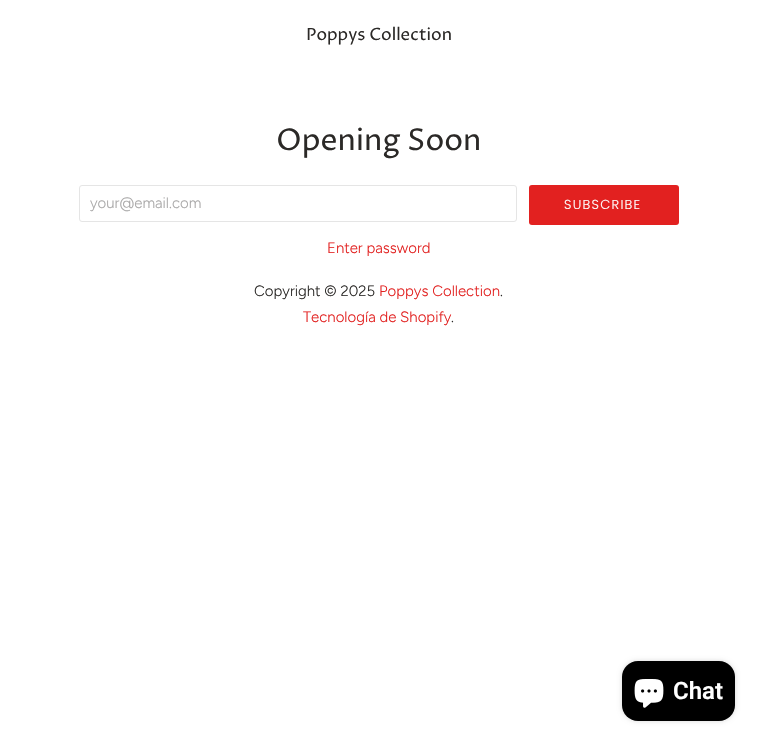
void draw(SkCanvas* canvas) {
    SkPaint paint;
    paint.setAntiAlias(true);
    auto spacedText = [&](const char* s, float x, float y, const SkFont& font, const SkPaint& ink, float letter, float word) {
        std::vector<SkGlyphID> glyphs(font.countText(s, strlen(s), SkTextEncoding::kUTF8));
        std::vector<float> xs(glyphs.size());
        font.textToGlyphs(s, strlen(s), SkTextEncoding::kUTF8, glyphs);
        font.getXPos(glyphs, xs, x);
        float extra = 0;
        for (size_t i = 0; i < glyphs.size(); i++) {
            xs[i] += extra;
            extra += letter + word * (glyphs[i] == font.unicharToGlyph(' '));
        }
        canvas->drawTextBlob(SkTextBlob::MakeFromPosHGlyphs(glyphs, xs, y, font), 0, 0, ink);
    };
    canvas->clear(0xFFFFFFFF);
    SkFont font1(fontMgr->matchFamilyStyle("Proza Libre", SkFontStyle::Normal()), 16.9f);
    font1.setSubpixel(true);
    paint.setColor(0xFF2B2927);
    canvas->drawString("Poppys Collection", 306, 40, font1, paint);
    SkFont font2(fontMgr->matchFamilyStyle("Proza Libre", SkFontStyle::Normal()), 30);
    font2.setSubpixel(true);
    canvas->drawString("Opening Soon", 276, 150, font2, paint);
    paint.setStyle(SkPaint::kStroke_Style);
    paint.setStrokeWidth(1);
    paint.setColor(0xFFE5E5E5);
    canvas->drawRoundRect(SkRect::MakeXYWH(79.5f, 185.5f, 437, 36), 2.5f, 2.5f, paint);
    SkFont font3(fontMgr->matchFamilyStyle("Figtree", SkFontStyle(300, SkFontStyle::kNormal_Width, SkFontStyle::kUpright_Slant)), 15);
    font3.setSubpixel(true);
    paint.setStyle(SkPaint::kFill_Style);
    paint.setColor(0xFFAAA9A9);
    canvas->drawString("your@email.com", 90, 208, font3, paint);
    paint.setColor(0xFFE22120);
    canvas->drawRoundRect(SkRect::MakeXYWH(529, 185, 150, 40), 3, 3, paint);
    SkFont font4(fontMgr->matchFamilyStyle("Poppins", SkFontStyle(300, SkFontStyle::kNormal_Width, SkFontStyle::kUpright_Slant)), 13);
    font4.setSubpixel(true);
    paint.setColor(0xFFFFFFFF);
    spacedText("SUBSCRIBE", 564, 209, font4, paint, 1.25f, 0);
    paint.setColor(0xFFE22120);
    canvas->drawString("Enter password", 327, 253, font3, paint);
    paint.setColor(0xFF2B2927);
    canvas->drawString("Copyright © 2025", 254, 296, font3, paint);
    paint.setColor(0xFFE22120);
    canvas->drawString("Poppys Collection", 379, 296, font3, paint);
    paint.setColor(0xFF2B2927);
    canvas->drawString(".", 500, 296, font3, paint);
    paint.setColor(0xFFE22120);
    canvas->drawString("Tecnología de Shopify", 303, 322, font3, paint);
    paint.setColor(0xFF2B2927);
    canvas->drawString(".", 451, 322, font3, paint);
    paint.setColor(0x26000000);
    paint.setMaskFilter(SkMaskFilter::MakeBlur(kNormal_SkBlurStyle, 2.5f));
    canvas->drawRoundRect(SkRect::MakeXYWH(622, 661, 113, 60), 16, 16, paint);
    paint.setMaskFilter(nullptr);
    paint.setColor(0xFF000000);
    canvas->drawRoundRect(SkRect::MakeXYWH(622, 661, 113, 60), 16, 16, paint);
    canvas->drawImageRect(SkImages::DeferredFromEncodedData(SkData::MakeFromFileName("img1.png")), SkRect::MakeXYWH(634, 679, 30, 29), SkSamplingOptions());
    SkFont font5(fontMgr->matchFamilyStyle("Roboto", SkFontStyle(600, SkFontStyle::kNormal_Width, SkFontStyle::kUpright_Slant)), 24);
    font5.setSubpixel(true);
    paint.setColor(0xFFFFFFFF);
    canvas->drawString("Chat", 673, 699, font5, paint);
}
